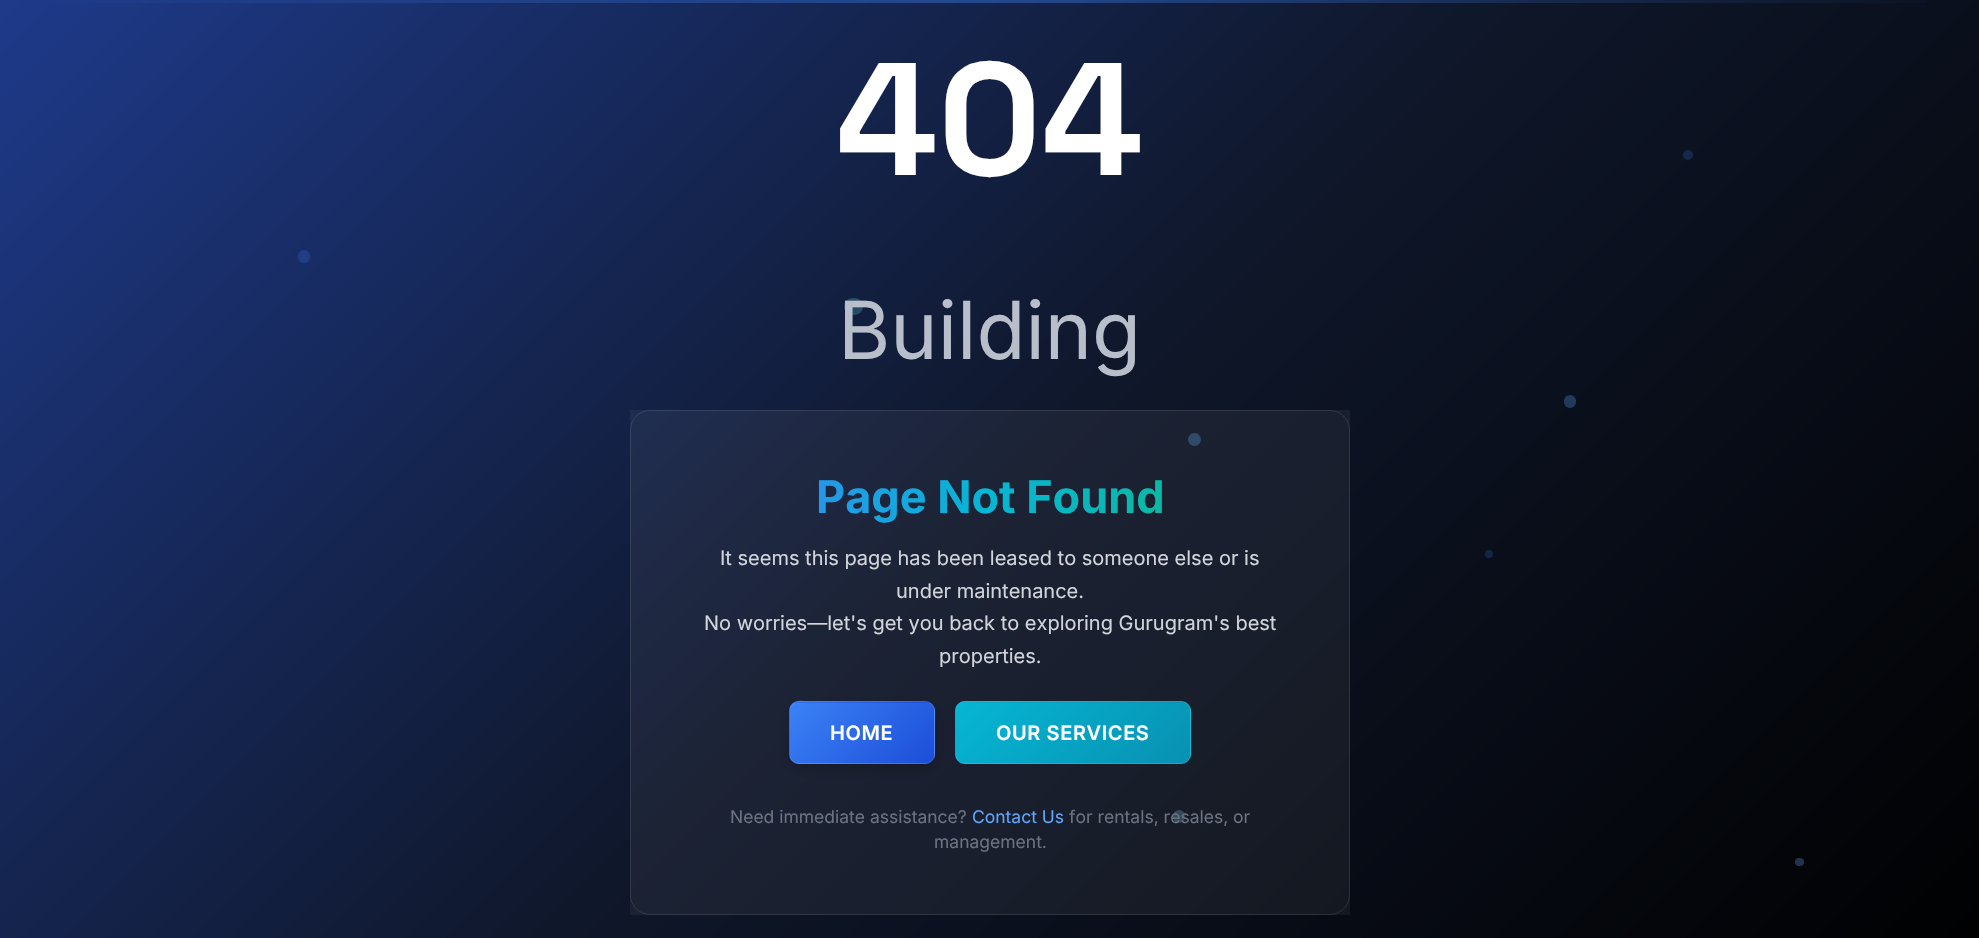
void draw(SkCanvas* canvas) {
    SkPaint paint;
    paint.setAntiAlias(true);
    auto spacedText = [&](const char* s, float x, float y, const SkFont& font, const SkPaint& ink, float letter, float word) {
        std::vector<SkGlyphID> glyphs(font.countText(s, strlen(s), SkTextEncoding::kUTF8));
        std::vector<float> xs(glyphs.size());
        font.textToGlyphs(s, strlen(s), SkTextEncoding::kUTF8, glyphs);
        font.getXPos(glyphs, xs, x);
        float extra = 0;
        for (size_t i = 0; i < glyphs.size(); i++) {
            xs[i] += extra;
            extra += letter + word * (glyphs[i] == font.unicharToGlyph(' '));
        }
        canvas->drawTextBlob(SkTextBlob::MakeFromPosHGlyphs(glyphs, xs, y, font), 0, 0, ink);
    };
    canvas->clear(0xFFFFFFFF);
    {
        const SkColor colors[] = {0xFF1E3A8A, 0xFF0F172A, 0xFF000000};
        const float stops[] = {0, 0.5f, 1};
        const SkPoint ends[] = {{245, -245}, {1735, 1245}};
        paint.setShader(SkGradientShader::MakeLinear(ends, colors, stops, 3, SkTileMode::kClamp));
        paint.setAlpha(255);
    }
    canvas->drawRect(SkRect::MakeXYWH(0, 0, 1979, 938), paint);
    {
        const SkColor colors[] = {0x003B82F6, 0x663B82F6, 0x003B82F6};
        const float stops[] = {0, 0.5f, 1};
        const SkPoint ends[] = {{0, 1.3f}, {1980, 1.2f}};
        paint.setShader(SkGradientShader::MakeLinear(ends, colors, stops, 3, SkTileMode::kClamp));
        paint.setAlpha(255);
    }
    canvas->drawRect(SkRect::MakeXYWH(53, 0, 1874, 3), paint);
    SkFont font1(fontMgr->matchFamilyStyle("Space Grotesk", SkFontStyle::Bold()), 160);
    font1.setSubpixel(true);
    paint.setShader(nullptr);
    paint.setColor(0xFFFFFFFF);
    canvas->drawString("404", 836, 175, font1, paint);
    paint.setColor(0xFF284A68);
    canvas->drawRoundRect(SkRect::MakeXYWH(844, 298, 19, 17), 8.5f, 8.5f, paint);
    SkFont font2(fontMgr->matchFamilyStyle("Inter", SkFontStyle::Normal()), 80);
    font2.setSubpixel(true);
    paint.setColor(0xFFB8BFCB);
    canvas->drawString("Building", 838, 359, font2, paint);
    paint.setColor(0xFF234163);
    canvas->drawCircle(1194.5f, 439.5f, 6.5f, paint);
    paint.setColor(0xFF182C52);
    canvas->drawCircle(800.5f, 707.5f, 7.5f, paint);
    paint.setColor(0xFF264153);
    canvas->drawRoundRect(SkRect::MakeXYWH(1173, 810, 12, 13), 6, 6, paint);
    paint.setColor(0x0DFFFFFF);
    canvas->drawRect(SkRect::MakeXYWH(630, 410, 720, 505), paint);
    paint.setStyle(SkPaint::kStroke_Style);
    paint.setStrokeWidth(1);
    paint.setColor(0x1AFFFFFF);
    canvas->drawRoundRect(SkRect::MakeXYWH(630.5f, 410.5f, 719, 504), 19.5f, 19.5f, paint);
    SkFont font3(fontMgr->matchFamilyStyle("Inter", SkFontStyle::Bold()), 45);
    font3.setSubpixel(true);
    paint.setStyle(SkPaint::kFill_Style);
    {
        const SkColor colors[] = {0xFF3B82F6, 0xFF06B6D4, 0xFF10B981};
        const float stops[] = {0, 0.5f, 1};
        const SkPoint ends[] = {{691, 496}, {1289, 496}};
        paint.setShader(SkGradientShader::MakeLinear(ends, colors, stops, 3, SkTileMode::kClamp));
        paint.setAlpha(255);
    }
    canvas->drawString("Page Not Found", 816, 513, font3, paint);
    SkFont font4(fontMgr->matchFamilyStyle("Inter", SkFontStyle::Normal()), 20);
    font4.setSubpixel(true);
    paint.setShader(nullptr);
    paint.setColor(0xFFD1D5DB);
    canvas->drawString("It seems this page has been leased to someone else or is", 720, 565, font4, paint);
    canvas->drawString("under maintenance.", 896, 598, font4, paint);
    canvas->drawString("No worries—let's get you back to exploring Gurugram's best", 704, 630, font4, paint);
    canvas->drawString("properties.", 939, 663, font4, paint);
    paint.setColor(0x33000000);
    paint.setMaskFilter(SkMaskFilter::MakeBlur(kNormal_SkBlurStyle, 6));
    canvas->drawRoundRect(SkRect::MakeXYWH(789, 706, 146, 63), 10, 10, paint);
    paint.setMaskFilter(nullptr);
    canvas->save();
    canvas->clipPath(SkPathBuilder().moveTo(799, 701).lineTo(925, 701).cubicTo(930.5f, 701, 935, 705.5f, 935, 711).lineTo(935, 754).cubicTo(935, 759.5f, 930.5f, 764, 925, 764).lineTo(799, 764).cubicTo(793.5f, 764, 789, 759.5f, 789, 754).lineTo(789, 711).cubicTo(789, 705.5f, 793.5f, 701, 799, 701).close().detach(), true);
    {
        const SkColor colors[] = {0xFF3B82F6, 0xFF1D4ED8};
        const float stops[] = {0, 1};
        const SkPoint ends[] = {{811, 622}, {913, 723}};
        paint.setShader(SkGradientShader::MakeLinear(ends, colors, stops, 2, SkTileMode::kClamp));
        paint.setAlpha(255);
    }
    canvas->drawRect(SkRect::MakeXYWH(790, 701, 144, 2), paint);
    {
        const SkColor colors[] = {0xFF3B82F6, 0xFF1D4ED8};
        const float stops[] = {0, 1};
        const SkPoint ends[] = {{667, 682}, {769, 783}};
        paint.setShader(SkGradientShader::MakeLinear(ends, colors, stops, 2, SkTileMode::kClamp));
        paint.setAlpha(255);
    }
    canvas->drawRect(SkRect::MakeXYWH(789, 703, 1, 60), paint);
    {
        const SkColor colors[] = {0xFF3B82F6, 0xFF1D4ED8};
        const float stops[] = {0, 1};
        const SkPoint ends[] = {{811, 682}, {913, 783}};
        paint.setShader(SkGradientShader::MakeLinear(ends, colors, stops, 2, SkTileMode::kClamp));
        paint.setAlpha(255);
    }
    canvas->drawRect(SkRect::MakeXYWH(790, 703, 144, 60), paint);
    {
        const SkColor colors[] = {0xFF3B82F6, 0xFF1D4ED8};
        const float stops[] = {0, 1};
        const SkPoint ends[] = {{955, 682}, {1057, 783}};
        paint.setShader(SkGradientShader::MakeLinear(ends, colors, stops, 2, SkTileMode::kClamp));
        paint.setAlpha(255);
    }
    canvas->drawRect(SkRect::MakeXYWH(934, 703, 1, 60), paint);
    {
        const SkColor colors[] = {0xFF3B82F6, 0xFF1D4ED8};
        const float stops[] = {0, 1};
        const SkPoint ends[] = {{811, 742}, {913, 843}};
        paint.setShader(SkGradientShader::MakeLinear(ends, colors, stops, 2, SkTileMode::kClamp));
        paint.setAlpha(255);
    }
    canvas->drawRect(SkRect::MakeXYWH(790, 763, 144, 1), paint);
    canvas->restore();
    paint.setStyle(SkPaint::kStroke_Style);
    paint.setShader(nullptr);
    paint.setColor(0x1AFFFFFF);
    canvas->drawRoundRect(SkRect::MakeXYWH(789.5f, 701.5f, 145, 62), 9.5f, 9.5f, paint);
    SkFont font5(fontMgr->matchFamilyStyle("Inter", SkFontStyle(600, SkFontStyle::kNormal_Width, SkFontStyle::kUpright_Slant)), 20);
    font5.setSubpixel(true);
    paint.setStyle(SkPaint::kFill_Style);
    paint.setColor(0xFFFFFFFF);
    spacedText("HOME", 830, 740, font5, paint, 0.6f, 0);
    canvas->save();
    canvas->clipPath(SkPathBuilder().moveTo(965, 701).lineTo(1181, 701).cubicTo(1186.5f, 701, 1191, 705.5f, 1191, 711).lineTo(1191, 754).cubicTo(1191, 759.5f, 1186.5f, 764, 1181, 764).lineTo(965, 764).cubicTo(959.5f, 764, 955, 759.5f, 955, 754).lineTo(955, 711).cubicTo(955, 705.5f, 959.5f, 701, 965, 701).close().detach(), true);
    {
        const SkColor colors[] = {0xFF06B6D4, 0xFF0891B2};
        const float stops[] = {0, 1};
        const SkPoint ends[] = {{1000, 599}, {1147, 746}};
        paint.setShader(SkGradientShader::MakeLinear(ends, colors, stops, 2, SkTileMode::kClamp));
        paint.setAlpha(255);
    }
    canvas->drawRect(SkRect::MakeXYWH(956, 701, 234, 2), paint);
    {
        const SkColor colors[] = {0xFF06B6D4, 0xFF0891B2};
        const float stops[] = {0, 1};
        const SkPoint ends[] = {{766, 659}, {913, 806}};
        paint.setShader(SkGradientShader::MakeLinear(ends, colors, stops, 2, SkTileMode::kClamp));
        paint.setAlpha(255);
    }
    canvas->drawRect(SkRect::MakeXYWH(955, 703, 1, 60), paint);
    {
        const SkColor colors[] = {0xFF06B6D4, 0xFF0891B2};
        const float stops[] = {0, 1};
        const SkPoint ends[] = {{1000, 659}, {1147, 806}};
        paint.setShader(SkGradientShader::MakeLinear(ends, colors, stops, 2, SkTileMode::kClamp));
        paint.setAlpha(255);
    }
    canvas->drawRect(SkRect::MakeXYWH(956, 703, 234, 60), paint);
    {
        const SkColor colors[] = {0xFF06B6D4, 0xFF0891B2};
        const float stops[] = {0, 1};
        const SkPoint ends[] = {{1233, 659}, {1380, 806}};
        paint.setShader(SkGradientShader::MakeLinear(ends, colors, stops, 2, SkTileMode::kClamp));
        paint.setAlpha(255);
    }
    canvas->drawRect(SkRect::MakeXYWH(1190, 703, 1, 60), paint);
    {
        const SkColor colors[] = {0xFF06B6D4, 0xFF0891B2};
        const float stops[] = {0, 1};
        const SkPoint ends[] = {{1000, 719}, {1147, 866}};
        paint.setShader(SkGradientShader::MakeLinear(ends, colors, stops, 2, SkTileMode::kClamp));
        paint.setAlpha(255);
    }
    canvas->drawRect(SkRect::MakeXYWH(956, 763, 234, 1), paint);
    canvas->restore();
    paint.setStyle(SkPaint::kStroke_Style);
    paint.setShader(nullptr);
    paint.setColor(0x1AFFFFFF);
    canvas->drawRoundRect(SkRect::MakeXYWH(955.5f, 701.5f, 235, 62), 9.5f, 9.5f, paint);
    paint.setStyle(SkPaint::kFill_Style);
    paint.setColor(0xFFFFFFFF);
    spacedText("OUR SERVICES", 996, 740, font5, paint, 0.6f, 0);
    SkFont font6(fontMgr->matchFamilyStyle("Inter", SkFontStyle::Normal()), 17.5f);
    font6.setSubpixel(true);
    paint.setColor(0xFF6B7280);
    canvas->drawString("Need immediate assistance?", 730, 823, font6, paint);
    paint.setColor(0xFF60A5FA);
    canvas->drawString("Contact Us", 972, 823, font6, paint);
    paint.setColor(0xFF6B7280);
    canvas->drawString("for rentals, resales, or", 1069, 823, font6, paint);
    canvas->drawString("management.", 934, 848, font6, paint);
    paint.setColor(0xFF15284B);
    canvas->drawCircle(1688, 155, 5, paint);
    paint.setColor(0xFF1F3E83);
    canvas->drawRoundRect(SkRect::MakeXYWH(298, 250, 12, 13), 6, 6, paint);
    paint.setColor(0xFF213B5C);
    canvas->drawRoundRect(SkRect::MakeXYWH(1564, 395, 12, 13), 6, 6, paint);
    paint.setColor(0xFF132546);
    canvas->drawCircle(1489, 554, 4, paint);
    paint.setColor(0xFF22314C);
    canvas->drawRoundRect(SkRect::MakeXYWH(1795, 858, 9, 8), 4, 4, paint);
}
